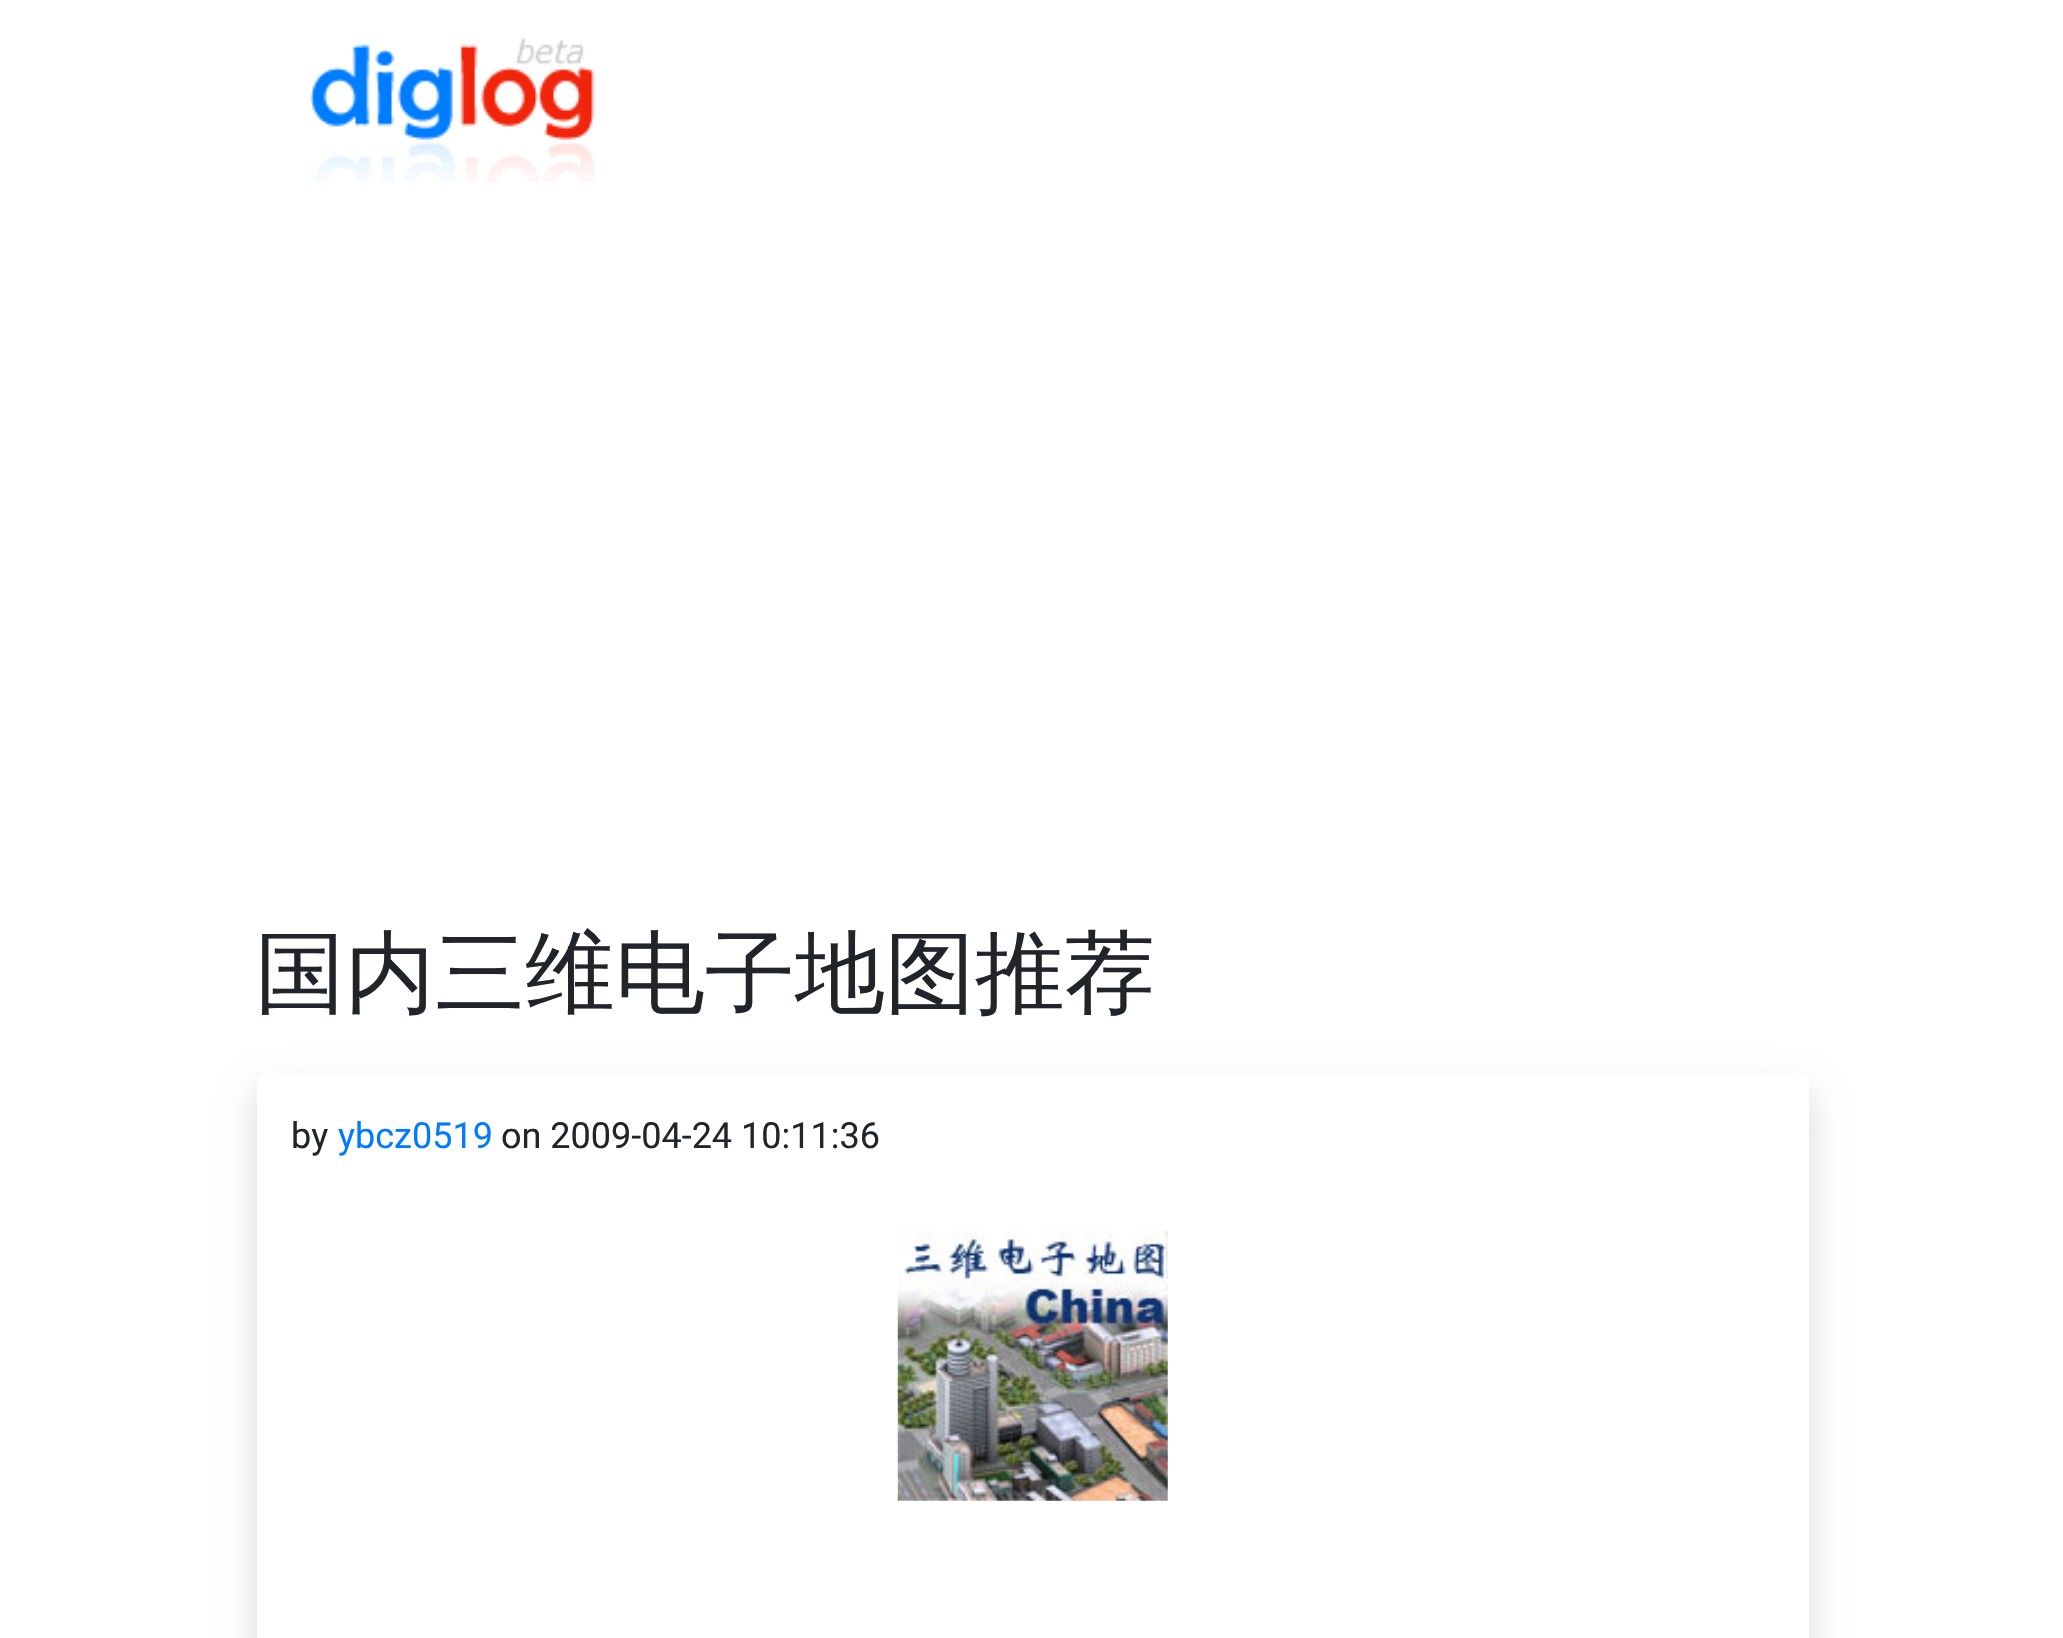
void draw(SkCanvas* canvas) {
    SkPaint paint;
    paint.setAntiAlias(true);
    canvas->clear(0xFFFFFFFF);
    canvas->drawImageRect(SkImages::DeferredFromEncodedData(SkData::MakeFromFileName("img1.png")), SkRect::MakeXYWH(310, 37, 285, 145), SkSamplingOptions());
    SkFont font1(fontMgr->matchFamilyStyle("WenQuanYi Zen Hei", SkFontStyle(500, SkFontStyle::kNormal_Width, SkFontStyle::kUpright_Slant)), 90);
    font1.setSubpixel(true);
    paint.setColor(0xFF212529);
    canvas->drawString("国内三维电子地图推荐", 255, 1004, font1, paint);
    paint.setColor(0x26000000);
    paint.setMaskFilter(SkMaskFilter::MakeBlur(kNormal_SkBlurStyle, 18));
    canvas->drawRoundRect(SkRect::MakeXYWH(257, 1091, 1552, 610), 9, 9, paint);
    paint.setMaskFilter(nullptr);
    paint.setColor(0xFFFFFFFF);
    canvas->drawRoundRect(SkRect::MakeXYWH(257, 1073, 1552, 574), 9, 9, paint);
    SkFont font2(fontMgr->matchFamilyStyle("Roboto", SkFontStyle::Normal()), 36);
    font2.setSubpixel(true);
    paint.setColor(0xFF212529);
    canvas->drawString("by", 291, 1148, font2, paint);
    paint.setColor(0xFF007BFF);
    canvas->drawString("ybcz0519", 338, 1148, font2, paint);
    paint.setColor(0xFF212529);
    canvas->drawString("on 2009-04-24 10:11:36", 501, 1148, font2, paint);
    canvas->drawImageRect(SkImages::DeferredFromEncodedData(SkData::MakeFromFileName("img2.png")), SkRect::MakeXYWH(897, 1230, 271, 271), SkSamplingOptions());
}
